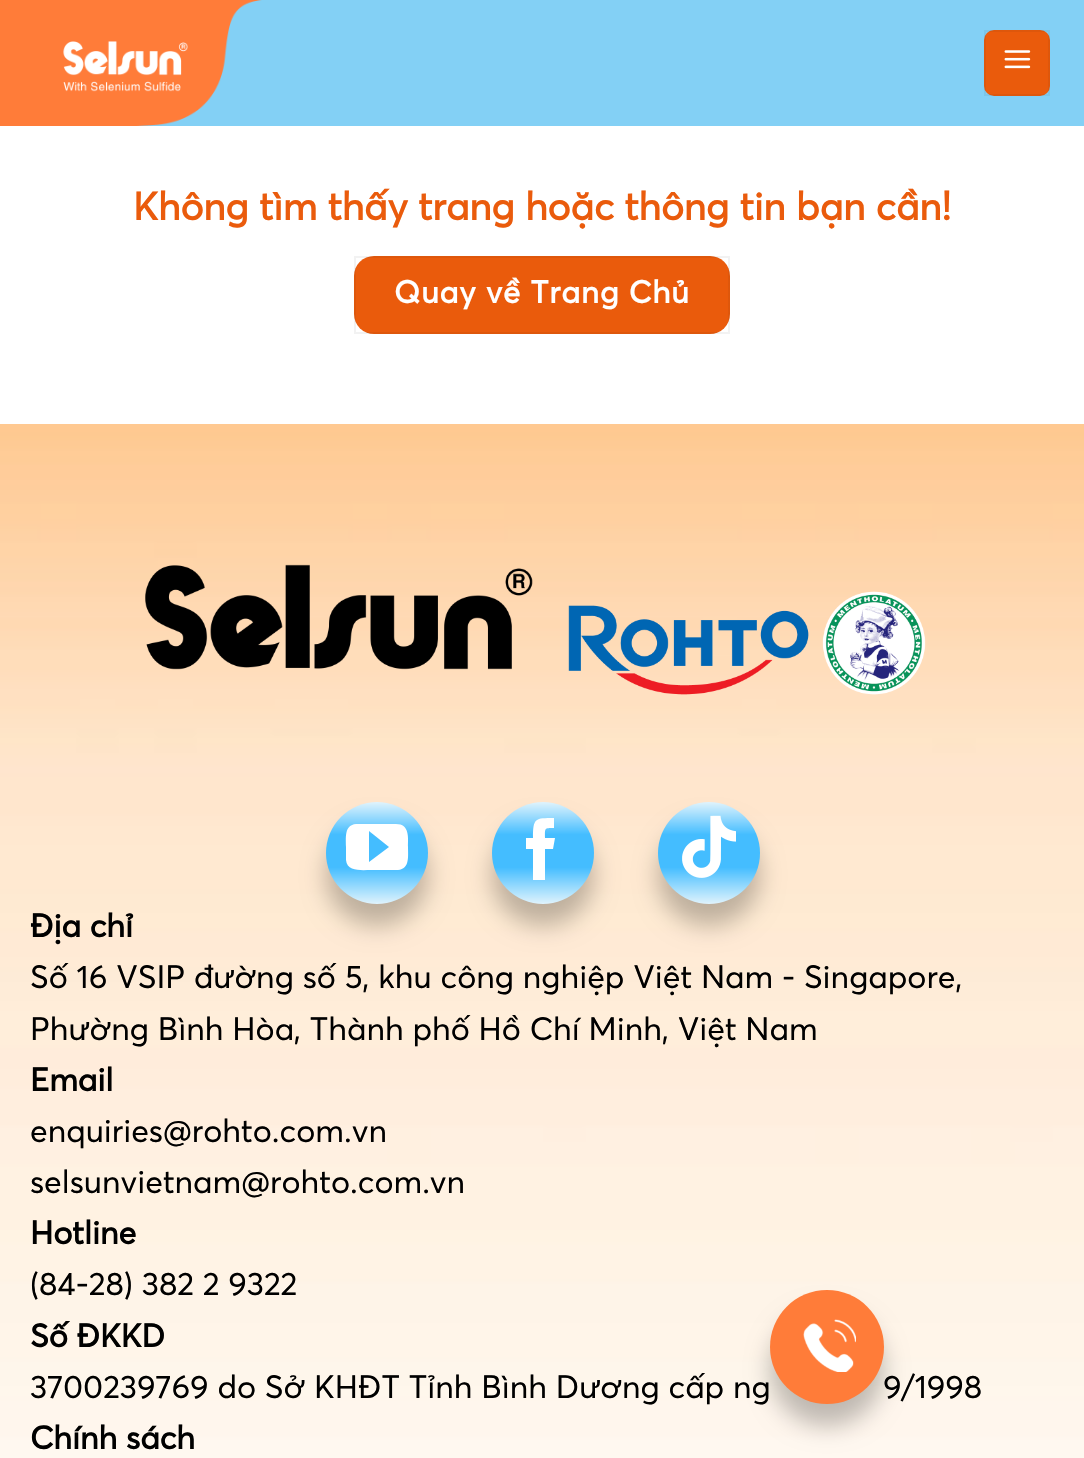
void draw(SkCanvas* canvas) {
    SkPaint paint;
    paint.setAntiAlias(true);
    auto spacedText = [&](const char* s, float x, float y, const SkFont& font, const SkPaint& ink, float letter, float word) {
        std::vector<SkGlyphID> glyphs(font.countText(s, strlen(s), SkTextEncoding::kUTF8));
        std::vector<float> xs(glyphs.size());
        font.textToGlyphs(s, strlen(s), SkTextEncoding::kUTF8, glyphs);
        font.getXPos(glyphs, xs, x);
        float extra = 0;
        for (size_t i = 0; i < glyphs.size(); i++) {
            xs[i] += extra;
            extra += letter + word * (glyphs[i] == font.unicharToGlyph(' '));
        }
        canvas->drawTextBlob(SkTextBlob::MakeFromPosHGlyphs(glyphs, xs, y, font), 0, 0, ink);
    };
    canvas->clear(0xFFFFFFFF);
    paint.setColor(0xFF83D0F5);
    canvas->drawRect(SkRect::MakeXYWH(137, 0, 947, 126), paint);
    canvas->drawImageRect(SkImages::DeferredFromEncodedData(SkData::MakeFromFileName("img1.png")), SkRect::MakeXYWH(0, 0, 262, 126), SkSamplingOptions());
    paint.setColor(0xFFEA5B0C);
    canvas->drawRoundRect(SkRect::MakeXYWH(984, 30, 66, 66), 10, 10, paint);
    paint.setStyle(SkPaint::kStroke_Style);
    paint.setStrokeWidth(2);
    paint.setColor(0x0D000000);
    canvas->drawRect(SkRect::MakeXYWH(985, 31, 64, 64), paint);
    canvas->drawImageRect(SkImages::DeferredFromEncodedData(SkData::MakeFromFileName("img2.png")), SkRect::MakeXYWH(1004, 50, 27, 19), SkSamplingOptions());
    SkFont font1(fontMgr->matchFamilyStyle("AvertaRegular", SkFontStyle::Bold()), 38.4f);
    font1.setSubpixel(true);
    paint.setStyle(SkPaint::kFill_Style);
    paint.setColor(0xFFEA5B0C);
    canvas->drawString("Không tìm thấy trang hoặc thông tin bạn cần!", 133, 220, font1, paint);
    canvas->drawRoundRect(SkRect::MakeXYWH(354, 256, 376, 78), 20, 20, paint);
    paint.setStyle(SkPaint::kStroke_Style);
    paint.setColor(0x0D000000);
    canvas->drawRect(SkRect::MakeXYWH(355, 257, 374, 76), paint);
    SkFont font2(fontMgr->matchFamilyStyle("AvertaRegular", SkFontStyle::Bold()), 31);
    font2.setSubpixel(true);
    paint.setStyle(SkPaint::kFill_Style);
    paint.setColor(0xFFFFFFFF);
    spacedText("Quay về Trang Chủ", 394, 303, font2, paint, 0.9f, 0);
    canvas->drawImageRect(SkImages::DeferredFromEncodedData(SkData::MakeFromFileName("img3.png")), SkRect::MakeXYWH(0, 424, 1084, 1034), SkSamplingOptions());
    canvas->drawImageRect(SkImages::DeferredFromEncodedData(SkData::MakeFromFileName("img4.png")), SkRect::MakeXYWH(145, 564, 388, 106), SkSamplingOptions());
    canvas->drawImageRect(SkImages::DeferredFromEncodedData(SkData::MakeFromFileName("img5.png")), SkRect::MakeXYWH(568, 591, 358, 104), SkSamplingOptions());
    paint.setColor(0x40000000);
    paint.setMaskFilter(SkMaskFilter::MakeBlur(kNormal_SkBlurStyle, 11.5f));
    canvas->drawRoundRect(SkRect::MakeXYWH(326, 824, 102, 102), 51, 51, paint);
    paint.setMaskFilter(nullptr);
    {
        const SkColor colors[] = {0xFFE0F3FC, 0xFF44BDFF, 0xFF44BDFF, 0xFFE0F3FC};
        const float stops[] = {0, 0.36f, 0.68f, 1};
        const SkPoint ends[] = {{377, 904}, {377, 802}};
        paint.setShader(SkGradientShader::MakeLinear(ends, colors, stops, 4, SkTileMode::kClamp));
        paint.setAlpha(255);
    }
    canvas->drawCircle(377, 853, 51, paint);
    paint.setShader(nullptr);
    paint.setColor(0xFFFFFFFF);
    canvas->drawPath(SkPathBuilder().moveTo(396, 824).lineTo(356, 824).cubicTo(344, 825, 346, 838, 346, 847).lineTo(346, 860).cubicTo(347, 872, 362, 870, 371, 870).lineTo(398, 870).cubicTo(410, 869, 408, 856, 408, 847).cubicTo(408, 838, 410, 824, 396, 824).close().moveTo(369, 862).lineTo(369, 831).lineTo(389, 847).close().detach(), paint);
    paint.setColor(0x40000000);
    paint.setMaskFilter(SkMaskFilter::MakeBlur(kNormal_SkBlurStyle, 11.5f));
    canvas->drawRoundRect(SkRect::MakeXYWH(492, 824, 102, 102), 51, 51, paint);
    paint.setMaskFilter(nullptr);
    {
        const SkColor colors[] = {0xFFE0F3FC, 0xFF44BDFF, 0xFF44BDFF, 0xFFE0F3FC};
        const float stops[] = {0, 0.36f, 0.68f, 1};
        const SkPoint ends[] = {{543, 904}, {543, 802}};
        paint.setShader(SkGradientShader::MakeLinear(ends, colors, stops, 4, SkTileMode::kClamp));
        paint.setAlpha(255);
    }
    canvas->drawCircle(543, 853, 51, paint);
    paint.setShader(nullptr);
    paint.setColor(0xFFFFFFFF);
    canvas->drawPath(SkPathBuilder().moveTo(545, 880).lineTo(533, 880).lineTo(533, 849).lineTo(526, 849).lineTo(526, 838).lineTo(533, 838).cubicTo(533, 818, 535, 818, 554, 818).lineTo(554, 828).cubicTo(544, 828, 545, 828, 545, 838).lineTo(555, 838).lineTo(553, 849).lineTo(545, 849).close().detach(), paint);
    paint.setColor(0x40000000);
    paint.setMaskFilter(SkMaskFilter::MakeBlur(kNormal_SkBlurStyle, 11.5f));
    canvas->drawRoundRect(SkRect::MakeXYWH(658, 824, 102, 102), 51, 51, paint);
    paint.setMaskFilter(nullptr);
    {
        const SkColor colors[] = {0xFFE0F3FC, 0xFF44BDFF, 0xFF44BDFF, 0xFFE0F3FC};
        const float stops[] = {0, 0.36f, 0.68f, 1};
        const SkPoint ends[] = {{709, 904}, {709, 802}};
        paint.setShader(SkGradientShader::MakeLinear(ends, colors, stops, 4, SkTileMode::kClamp));
        paint.setAlpha(255);
    }
    canvas->drawCircle(709, 853, 51, paint);
    canvas->drawImageRect(SkImages::DeferredFromEncodedData(SkData::MakeFromFileName("img6.png")), SkRect::MakeXYWH(682, 815, 54, 63), SkSamplingOptions());
    SkFont font3(fontMgr->matchFamilyStyle("AvertaRegular", SkFontStyle::Bold()), 32);
    font3.setSubpixel(true);
    paint.setShader(nullptr);
    paint.setColor(0xFF000000);
    canvas->drawString("Địa chỉ", 30, 937, font3, paint);
    SkFont font4(fontMgr->matchFamilyStyle("AvertaRegular", SkFontStyle::Normal()), 32);
    font4.setSubpixel(true);
    canvas->drawString("Số 16 VSIP đường số 5, khu công nghiệp Việt Nam - Singapore,", 30, 988, font4, paint);
    canvas->drawString("Phường Bình Hòa, Thành phố Hồ Chí Minh, Việt Nam", 30, 1040, font4, paint);
    canvas->drawString("Email", 30, 1091, font3, paint);
    canvas->drawString("enquiries@rohto.com.vn", 30, 1142, font4, paint);
    canvas->drawString("selsunvietnam@rohto.com.vn", 30, 1193, font4, paint);
    canvas->drawString("Hotline", 30, 1244, font3, paint);
    canvas->drawString("(84-28) 382 2 9322", 30, 1295, font4, paint);
    canvas->drawString("Số ĐKKD", 30, 1347, font3, paint);
    canvas->drawString("3700239769 do Sở KHĐT Tỉnh Bình Dương cấp ng", 30, 1398, font4, paint);
    canvas->drawString("9/1998", 883, 1398, font4, paint);
    canvas->drawString("Chính sách", 30, 1449, font3, paint);
    paint.setColor(0x40000000);
    paint.setMaskFilter(SkMaskFilter::MakeBlur(kNormal_SkBlurStyle, 11.5f));
    canvas->drawRoundRect(SkRect::MakeXYWH(770, 1312, 114, 114), 57, 57, paint);
    paint.setMaskFilter(nullptr);
    paint.setColor(0xFFFF7C39);
    canvas->drawCircle(827, 1347, 57, paint);
    canvas->drawImageRect(SkImages::DeferredFromEncodedData(SkData::MakeFromFileName("img7.png")), SkRect::MakeXYWH(803, 1319, 53, 53), SkSamplingOptions());
}
